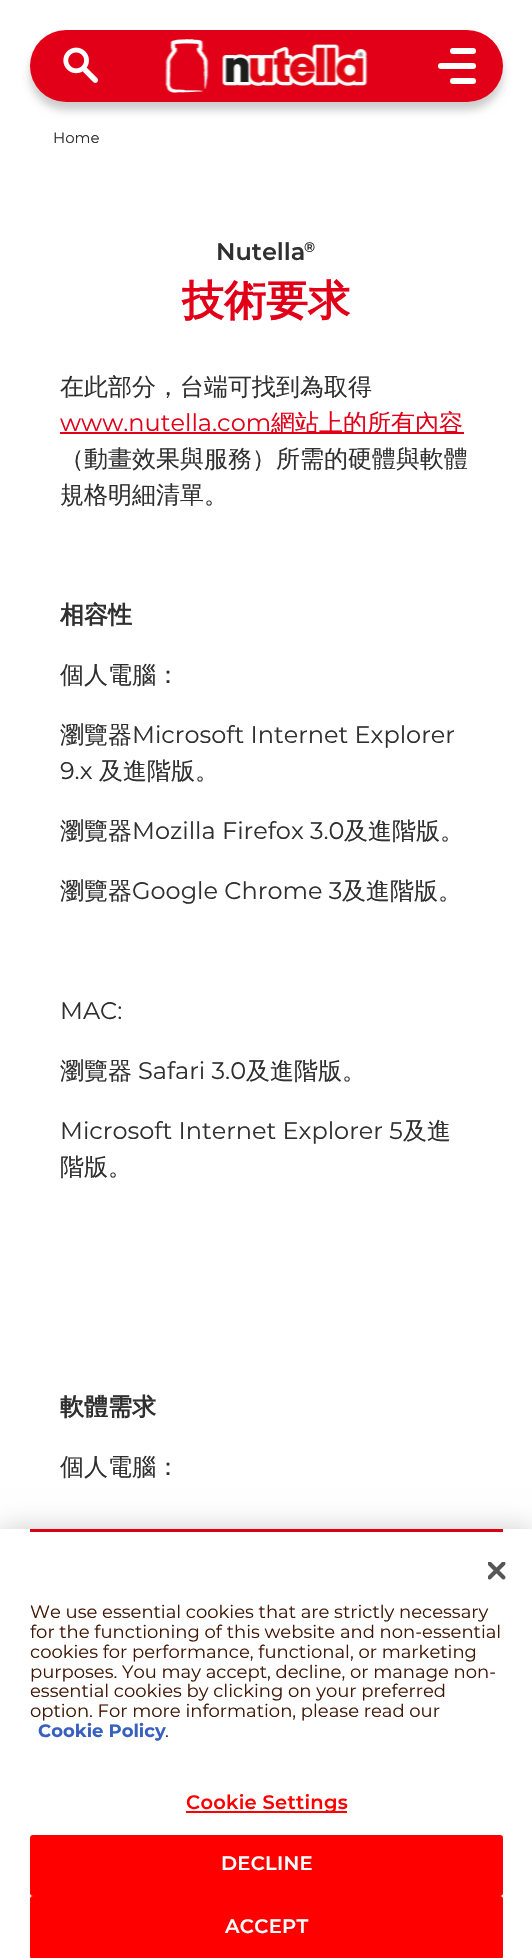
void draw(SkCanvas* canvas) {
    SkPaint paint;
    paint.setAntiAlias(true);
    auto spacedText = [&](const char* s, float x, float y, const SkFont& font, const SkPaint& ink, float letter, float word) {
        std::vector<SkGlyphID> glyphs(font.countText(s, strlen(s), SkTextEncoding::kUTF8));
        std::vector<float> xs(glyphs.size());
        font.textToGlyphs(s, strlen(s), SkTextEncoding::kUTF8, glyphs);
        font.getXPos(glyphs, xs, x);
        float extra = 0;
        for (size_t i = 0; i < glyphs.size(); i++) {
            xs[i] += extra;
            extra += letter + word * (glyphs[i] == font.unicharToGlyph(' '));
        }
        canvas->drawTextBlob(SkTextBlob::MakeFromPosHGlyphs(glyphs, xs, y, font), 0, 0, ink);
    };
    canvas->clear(0xFFFFFFFF);
    paint.setColor(0x33000000);
    paint.setMaskFilter(SkMaskFilter::MakeBlur(kNormal_SkBlurStyle, 4));
    canvas->drawRoundRect(SkRect::MakeXYWH(30, 38, 473, 72), 36, 36, paint);
    paint.setMaskFilter(nullptr);
    paint.setColor(0xFFE20019);
    canvas->drawRoundRect(SkRect::MakeXYWH(30, 30, 473, 72), 36, 36, paint);
    canvas->drawImageRect(SkImages::DeferredFromEncodedData(SkData::MakeFromFileName("img1.png")), SkRect::MakeXYWH(63, 47, 35, 36), SkSamplingOptions());
    canvas->drawImageRect(SkImages::DeferredFromEncodedData(SkData::MakeFromFileName("img2.png")), SkRect::MakeXYWH(165, 39, 203, 54), SkSamplingOptions());
    paint.setColor(0xFFFFFFFF);
    canvas->drawRoundRect(SkRect::MakeXYWH(438, 63, 38, 6), 3, 3, paint);
    canvas->drawRoundRect(SkRect::MakeXYWH(450, 48, 26, 6), 3, 3, paint);
    canvas->drawRoundRect(SkRect::MakeXYWH(450, 78, 26, 6), 3, 3, paint);
    SkFont font1(fontMgr->matchFamilyStyle("Montserrat", SkFontStyle::Normal()), 15);
    font1.setSubpixel(true);
    paint.setColor(0xFF303030);
    canvas->drawString("Home", 53, 143, font1, paint);
    SkFont font2(fontMgr->matchFamilyStyle("Montserrat", SkFontStyle(600, SkFontStyle::kNormal_Width, SkFontStyle::kUpright_Slant)), 24);
    font2.setSubpixel(true);
    canvas->drawString("Nutella", 216, 260, font2, paint);
    SkFont font3(fontMgr->matchFamilyStyle("Montserrat", SkFontStyle(600, SkFontStyle::kNormal_Width, SkFontStyle::kUpright_Slant)), 14);
    font3.setSubpixel(true);
    canvas->drawString("®", 304, 252, font3, paint);
    SkFont font4(fontMgr->matchFamilyStyle("WenQuanYi Zen Hei", SkFontStyle::Bold()), 42);
    font4.setSubpixel(true);
    paint.setColor(0xFFE20019);
    canvas->drawString("技術要求", 182, 315, font4, paint);
    SkFont font5(fontMgr->matchFamilyStyle("WenQuanYi Zen Hei", SkFontStyle(500, SkFontStyle::kNormal_Width, SkFontStyle::kUpright_Slant)), 24);
    font5.setSubpixel(true);
    paint.setColor(0xFF303030);
    canvas->drawString("在此部分，台端可找到為取得", 60, 395, font5, paint);
    SkFont font6(fontMgr->matchFamilyStyle("Montserrat", SkFontStyle::Normal()), 24);
    font6.setSubpixel(true);
    paint.setColor(0xFFE20019);
    canvas->drawString("www.nutella.com", 60, 431, font6, paint);
    canvas->drawRect(SkRect::MakeXYWH(60, 432, 404, 2), paint);
    canvas->drawString("網站上的所有內容", 271, 431, font5, paint);
    paint.setColor(0xFF303030);
    canvas->drawString("（動畫效果與服務）所需的硬體與軟體", 60, 467, font5, paint);
    canvas->drawString("規格明細清單。", 60, 503, font5, paint);
    SkFont font7(fontMgr->matchFamilyStyle("WenQuanYi Zen Hei", SkFontStyle::Bold()), 24);
    font7.setSubpixel(true);
    canvas->drawString("相容性", 60, 623, font7, paint);
    canvas->drawString("個人電腦：", 60, 683, font5, paint);
    canvas->drawString("瀏覽器", 60, 743, font5, paint);
    canvas->drawString("Microsoft Internet Explorer", 132, 743, font6, paint);
    canvas->drawString("9.x", 60, 779, font6, paint);
    canvas->drawString("及進階版。", 99, 779, font5, paint);
    canvas->drawString("瀏覽器", 60, 839, font5, paint);
    canvas->drawString("Mozilla Firefox 3.0", 132, 839, font6, paint);
    canvas->drawString("及進階版。", 344, 839, font5, paint);
    canvas->drawString("瀏覽器", 60, 899, font5, paint);
    canvas->drawString("Google Chrome 3", 132, 899, font6, paint);
    canvas->drawString("及進階版。", 342, 899, font5, paint);
    canvas->drawString("MAC:", 60, 1019, font6, paint);
    canvas->drawString("瀏覽器", 60, 1079, font5, paint);
    canvas->drawString("Safari 3.0", 138, 1079, font6, paint);
    canvas->drawString("及進階版。", 246, 1079, font5, paint);
    canvas->drawString("Microsoft Internet Explorer 5", 60, 1139, font6, paint);
    canvas->drawString("及進", 403, 1139, font5, paint);
    canvas->drawString("階版。", 60, 1175, font5, paint);
    canvas->drawString("軟體需求", 60, 1415, font7, paint);
    canvas->drawString("個人電腦：", 60, 1475, font5, paint);
    paint.setColor(0x33000000);
    paint.setMaskFilter(SkMaskFilter::MakeBlur(kNormal_SkBlurStyle, 13.5f));
    canvas->drawRect(SkRect::MakeXYWH(0, 1529, 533, 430), paint);
    paint.setMaskFilter(nullptr);
    paint.setColor(0xFFFFFFFF);
    canvas->drawRect(SkRect::MakeXYWH(0, 1529, 532, 429), paint);
    canvas->drawImageRect(SkImages::DeferredFromEncodedData(SkData::MakeFromFileName("img3.png")), SkRect::MakeXYWH(488, 1562, 18, 18), SkSamplingOptions());
    paint.setColor(0xFFD90210);
    canvas->drawRect(SkRect::MakeXYWH(30, 1529, 473, 3), paint);
    SkFont font8(fontMgr->matchFamilyStyle("Montserrat", SkFontStyle::Normal()), 18);
    font8.setSubpixel(true);
    paint.setColor(0xFF411705);
    canvas->drawString("We use essential cookies that are strictly necessary", 30, 1618, font8, paint);
    canvas->drawString("for the functioning of this website and non-essential", 30, 1638, font8, paint);
    canvas->drawString("cookies for performance, functional, or marketing", 30, 1658, font8, paint);
    canvas->drawString("purposes. You may accept, decline, or manage non-", 30, 1678, font8, paint);
    canvas->drawString("essential cookies by clicking on your preferred", 30, 1697, font8, paint);
    canvas->drawString("option. For more information, please read our", 30, 1717, font8, paint);
    SkFont font9(fontMgr->matchFamilyStyle("Montserrat", SkFontStyle::Bold()), 18);
    font9.setSubpixel(true);
    paint.setColor(0xFF3860BE);
    canvas->drawString("Cookie Policy", 38, 1737, font9, paint);
    paint.setColor(0xFF411705);
    canvas->drawString(".", 165, 1737, font8, paint);
    paint.setColor(0xFFFF0000);
    canvas->drawRect(SkRect::MakeXYWH(186, 1811, 161, 2), paint);
    SkFont font10(fontMgr->matchFamilyStyle("Montserrat", SkFontStyle(600, SkFontStyle::kNormal_Width, SkFontStyle::kUpright_Slant)), 19.5f);
    font10.setSubpixel(true);
    spacedText("Cookie Settings", 186, 1809, font10, paint, 0.25f, 0);
    canvas->drawRoundRect(SkRect::MakeXYWH(31, 1836, 471, 59), 2, 2, paint);
    paint.setStyle(SkPaint::kStroke_Style);
    paint.setStrokeWidth(2);
    canvas->drawRoundRect(SkRect::MakeXYWH(31, 1836, 471, 59), 2, 2, paint);
    paint.setStyle(SkPaint::kFill_Style);
    paint.setColor(0xFFFFFFFF);
    spacedText("DECLINE", 221, 1870, font10, paint, 0.25f, 0);
    paint.setColor(0xFFFF0000);
    canvas->drawRoundRect(SkRect::MakeXYWH(31, 1897, 471, 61), 2, 2, paint);
    paint.setStyle(SkPaint::kStroke_Style);
    canvas->drawRoundRect(SkRect::MakeXYWH(31, 1897, 471, 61), 2, 2, paint);
    paint.setStyle(SkPaint::kFill_Style);
    paint.setColor(0xFFFFFFFF);
    spacedText("ACCEPT", 225, 1933, font10, paint, 0.25f, 0);
}
